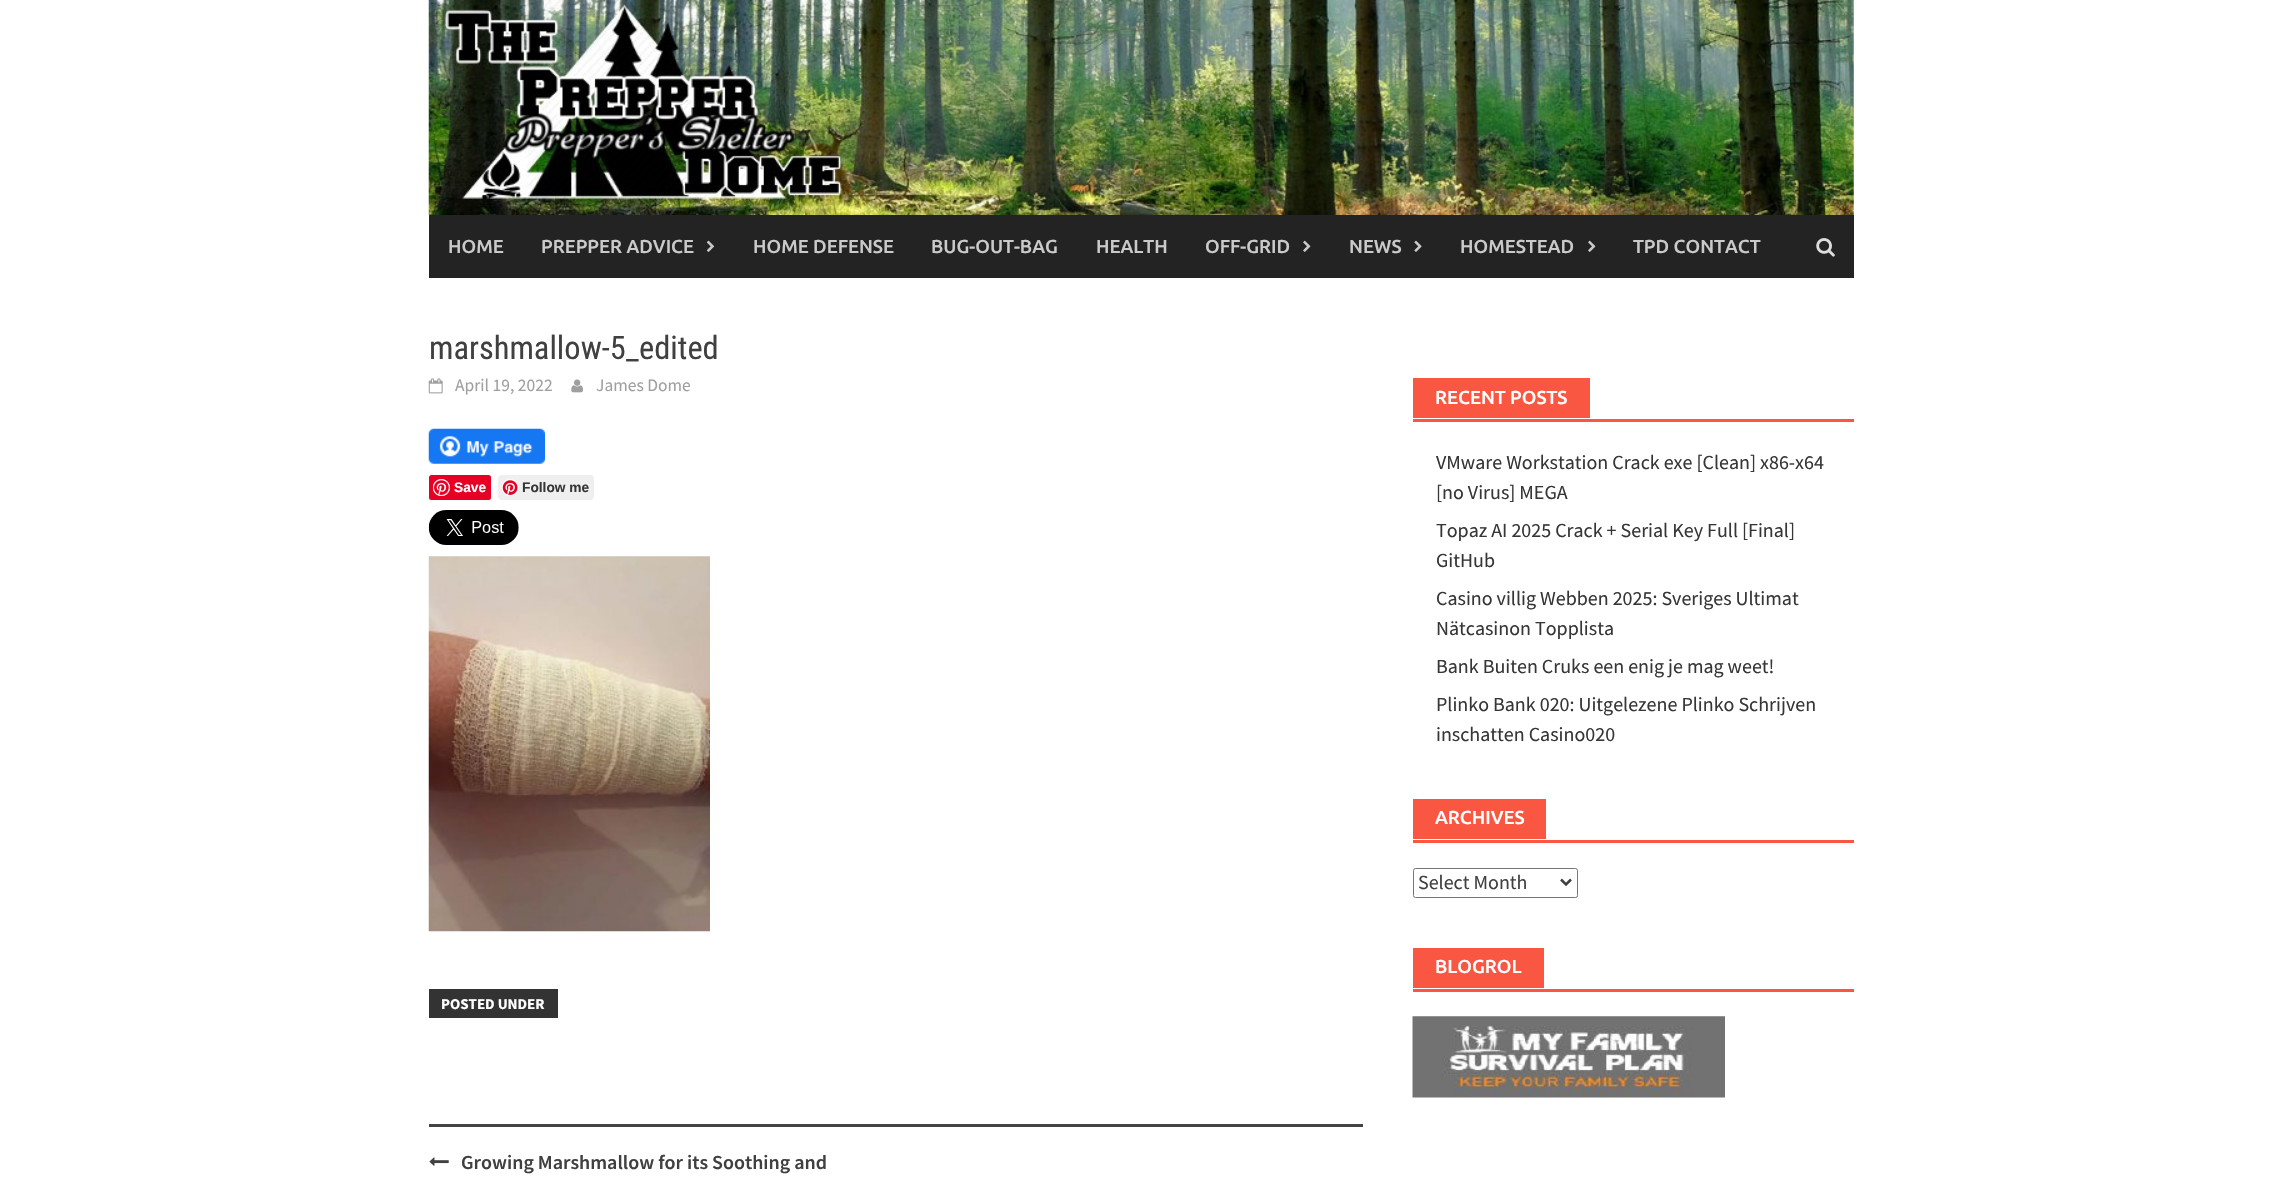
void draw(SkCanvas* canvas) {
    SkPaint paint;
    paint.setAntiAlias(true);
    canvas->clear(0xFFFFFFFF);
    canvas->drawImageRect(SkImages::DeferredFromEncodedData(SkData::MakeFromFileName("img1.png")), SkRect::MakeXYWH(428, 0, 1426, 215), SkSamplingOptions());
    paint.setColor(0xFF232323);
    canvas->drawRect(SkRect::MakeXYWH(429, 215, 1425, 63), paint);
    SkFont font1(fontMgr->matchFamilyStyle("Ubuntu", SkFontStyle(500, SkFontStyle::kNormal_Width, SkFontStyle::kUpright_Slant)), 18.75f);
    font1.setSubpixel(true);
    paint.setColor(0xFFCACACA);
    canvas->drawString("HOME", 448, 253, font1, paint);
    canvas->drawString("PREPPER ADVICE", 541, 253, font1, paint);
    canvas->drawImageRect(SkImages::DeferredFromEncodedData(SkData::MakeFromFileName("img2.png")), SkRect::MakeXYWH(706, 240, 9, 12), SkSamplingOptions());
    canvas->drawString("HOME DEFENSE", 753, 253, font1, paint);
    canvas->drawString("BUG-OUT-BAG", 931, 253, font1, paint);
    canvas->drawString("HEALTH", 1096, 253, font1, paint);
    canvas->drawString("OFF-GRID", 1205, 253, font1, paint);
    canvas->drawImageRect(SkImages::DeferredFromEncodedData(SkData::MakeFromFileName("img3.png")), SkRect::MakeXYWH(1303, 240, 8, 12), SkSamplingOptions());
    canvas->drawString("NEWS", 1349, 253, font1, paint);
    canvas->drawImageRect(SkImages::DeferredFromEncodedData(SkData::MakeFromFileName("img4.png")), SkRect::MakeXYWH(1414, 240, 8, 12), SkSamplingOptions());
    canvas->drawString("HOMESTEAD", 1460, 253, font1, paint);
    canvas->drawImageRect(SkImages::DeferredFromEncodedData(SkData::MakeFromFileName("img3.png")), SkRect::MakeXYWH(1588, 240, 8, 12), SkSamplingOptions());
    canvas->drawString("TPD CONTACT", 1633, 253, font1, paint);
    canvas->drawImageRect(SkImages::DeferredFromEncodedData(SkData::MakeFromFileName("img5.png")), SkRect::MakeXYWH(1816, 238, 19, 19), SkSamplingOptions());
    SkFont font2(fontMgr->matchFamilyStyle("Roboto Condensed", SkFontStyle::Normal()), 32.5f);
    font2.setSubpixel(true);
    paint.setColor(0xFF404040);
    canvas->drawString("marshmallow-5_edited", 429, 359, font2, paint);
    canvas->drawImageRect(SkImages::DeferredFromEncodedData(SkData::MakeFromFileName("img6.png")), SkRect::MakeXYWH(428, 378, 15, 16), SkSamplingOptions());
    SkFont font3(fontMgr->matchFamilyStyle("Source Sans Pro", SkFontStyle::Normal()), 17.5f);
    font3.setSubpixel(true);
    paint.setColor(0xFF9F9F9F);
    canvas->drawString("April 19, 2022", 455, 391, font3, paint);
    canvas->drawImageRect(SkImages::DeferredFromEncodedData(SkData::MakeFromFileName("img7.png")), SkRect::MakeXYWH(571, 379, 12, 14), SkSamplingOptions());
    canvas->drawString("James Dome", 596, 391, font3, paint);
    canvas->drawImageRect(SkImages::DeferredFromEncodedData(SkData::MakeFromFileName("img8.png")), SkRect::MakeXYWH(428, 428, 117, 36), SkSamplingOptions());
    paint.setColor(0xFFE60023);
    canvas->drawRoundRect(SkRect::MakeXYWH(429, 475, 62, 25), 2.5f, 2.5f, paint);
    canvas->drawImageRect(SkImages::DeferredFromEncodedData(SkData::MakeFromFileName("img9.png")), SkRect::MakeXYWH(433, 479, 17, 17), SkSamplingOptions());
    SkFont font4(fontMgr->matchFamilyStyle("Liberation Sans", SkFontStyle::Bold()), 13.75f);
    font4.setSubpixel(true);
    paint.setColor(0xFFFFFFFF);
    canvas->drawString("Save", 454, 492, font4, paint);
    paint.setColor(0xFFEFEFEF);
    canvas->drawRoundRect(SkRect::MakeXYWH(498, 475, 96, 25), 4, 4, paint);
    canvas->drawImageRect(SkImages::DeferredFromEncodedData(SkData::MakeFromFileName("img10.png")), SkRect::MakeXYWH(501, 479, 18, 17), SkSamplingOptions());
    paint.setColor(0xFF363636);
    canvas->drawString("Follow me", 522, 492, font4, paint);
    canvas->drawImageRect(SkImages::DeferredFromEncodedData(SkData::MakeFromFileName("img11.png")), SkRect::MakeXYWH(428, 510, 91, 35), SkSamplingOptions());
    canvas->drawImageRect(SkImages::DeferredFromEncodedData(SkData::MakeFromFileName("img12.png")), SkRect::MakeXYWH(428, 556, 282, 376), SkSamplingOptions());
    paint.setColor(0xFF333333);
    canvas->drawRect(SkRect::MakeXYWH(429, 989, 129, 29), paint);
    SkFont font5(fontMgr->matchFamilyStyle("Source Sans Pro", SkFontStyle::Bold()), 15);
    font5.setSubpixel(true);
    paint.setColor(0xFFFFFFFF);
    canvas->drawString("POSTED UNDER", 441, 1009, font5, paint);
    paint.setColor(0xFF444444);
    canvas->drawRect(SkRect::MakeXYWH(429, 1124, 934, 3), paint);
    canvas->drawImageRect(SkImages::DeferredFromEncodedData(SkData::MakeFromFileName("img13.png")), SkRect::MakeXYWH(429, 1157, 20, 9), SkSamplingOptions());
    SkFont font6(fontMgr->matchFamilyStyle("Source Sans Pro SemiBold", SkFontStyle(600, SkFontStyle::kNormal_Width, SkFontStyle::kUpright_Slant)), 20);
    font6.setSubpixel(true);
    paint.setColor(0xFF404040);
    canvas->drawString("Growing Marshmallow for its Soothing and", 461, 1169, font6, paint);
    paint.setColor(0xFFFA5742);
    canvas->drawRect(SkRect::MakeXYWH(1413, 419, 441, 3), paint);
    canvas->drawRect(SkRect::MakeXYWH(1413, 378, 177, 40), paint);
    paint.setColor(0xFFFFFFFF);
    canvas->drawString("RECENT POSTS", 1435, 404, font1, paint);
    SkFont font7(fontMgr->matchFamilyStyle("Source Sans Pro", SkFontStyle::Normal()), 20);
    font7.setSubpixel(true);
    paint.setColor(0xFF363636);
    canvas->drawString("VMware Workstation Crack exe [Clean] x86-x64", 1436, 469, font7, paint);
    canvas->drawString("[no Virus] MEGA", 1436, 499, font7, paint);
    canvas->drawString("Topaz AI 2025 Crack + Serial Key Full [Final]", 1436, 537, font7, paint);
    canvas->drawString("GitHub", 1436, 567, font7, paint);
    canvas->drawString("Casino villig Webben 2025: Sveriges Ultimat", 1436, 605, font7, paint);
    canvas->drawString("Nätcasinon Topplista", 1436, 635, font7, paint);
    canvas->drawString("Bank Buiten Cruks een enig je mag weet!", 1436, 673, font7, paint);
    canvas->drawString("Plinko Bank 020: Uitgelezene Plinko Schrijven", 1436, 711, font7, paint);
    canvas->drawString("inschatten Casino020", 1436, 741, font7, paint);
    paint.setColor(0xFFFA5742);
    canvas->drawRect(SkRect::MakeXYWH(1413, 840, 441, 3), paint);
    canvas->drawRect(SkRect::MakeXYWH(1413, 799, 133, 40), paint);
    paint.setColor(0xFFFFFFFF);
    canvas->drawString("ARCHIVES", 1435, 824, font1, paint);
    paint.setStyle(SkPaint::kStroke_Style);
    paint.setStrokeWidth(1);
    paint.setColor(0xFF767676);
    canvas->drawRoundRect(SkRect::MakeXYWH(1413.5f, 868.5f, 164, 29), 2, 2, paint);
    paint.setStrokeWidth(2.5f);
    paint.setColor(0xFF404040);
    canvas->drawPath(SkPathBuilder().moveTo(1561, 879.5f).lineTo(1566, 884.5f).lineTo(1571, 879.5f).detach(), paint);
    paint.setStyle(SkPaint::kFill_Style);
    canvas->drawString("Select Month", 1418, 889, font7, paint);
    paint.setColor(0xFFFA5742);
    canvas->drawRect(SkRect::MakeXYWH(1413, 989, 441, 3), paint);
    canvas->drawRect(SkRect::MakeXYWH(1413, 948, 131, 40), paint);
    paint.setColor(0xFFFFFFFF);
    canvas->drawString("BLOGROL", 1435, 973, font1, paint);
    canvas->drawImageRect(SkImages::DeferredFromEncodedData(SkData::MakeFromFileName("img14.png")), SkRect::MakeXYWH(1412, 1016, 313, 82), SkSamplingOptions());
}
